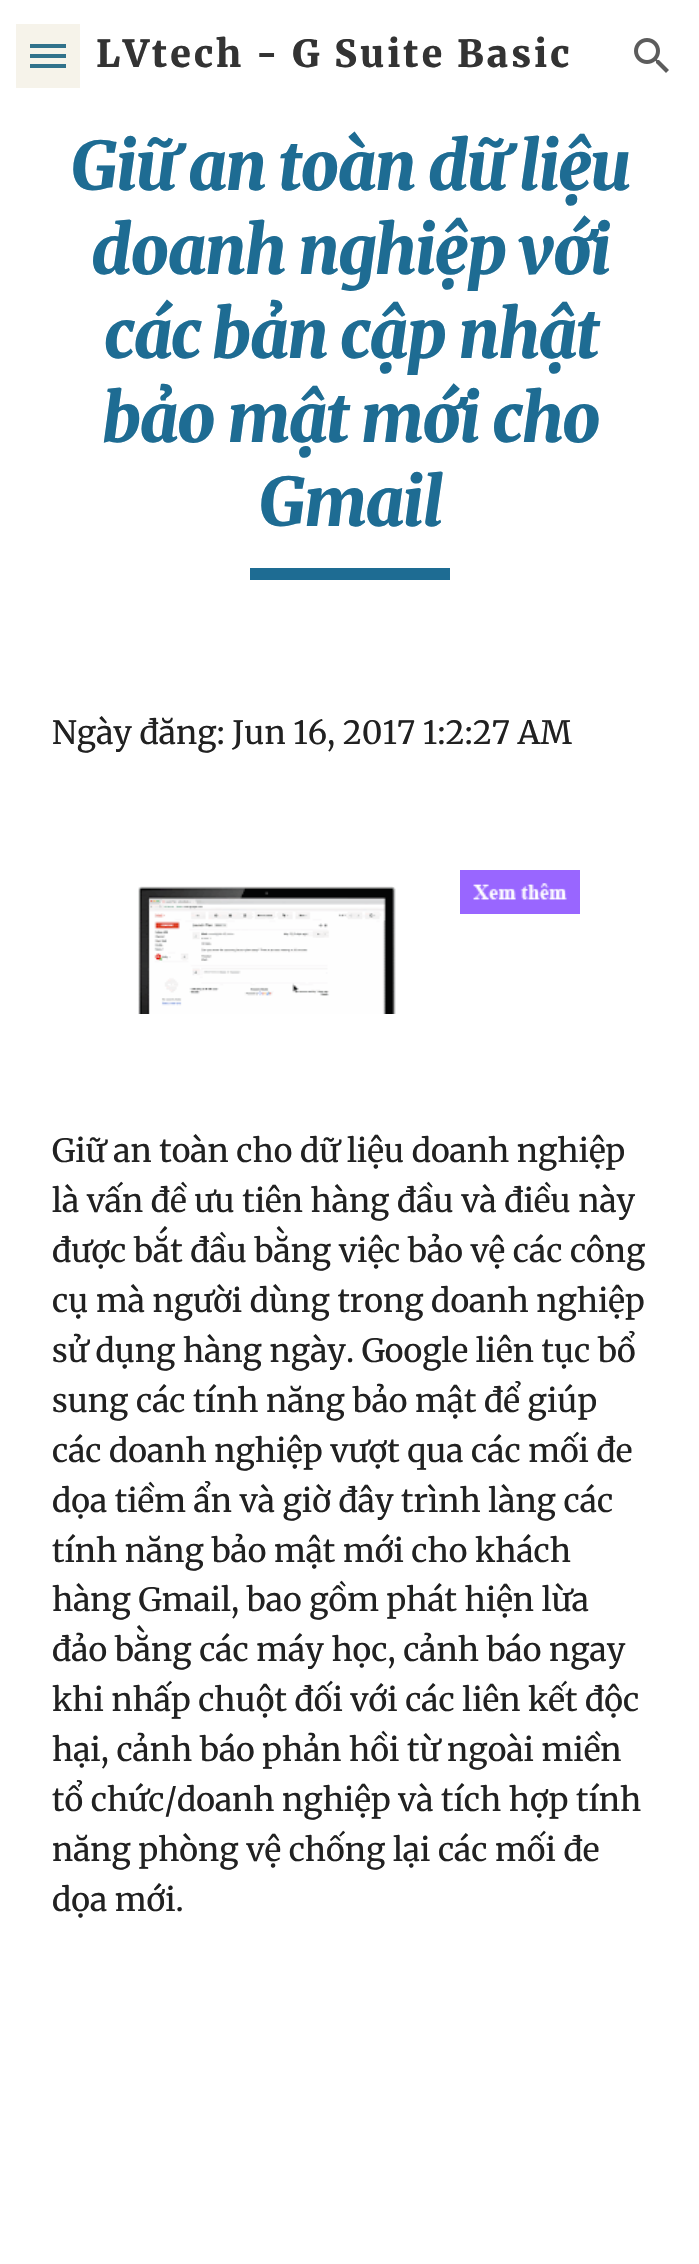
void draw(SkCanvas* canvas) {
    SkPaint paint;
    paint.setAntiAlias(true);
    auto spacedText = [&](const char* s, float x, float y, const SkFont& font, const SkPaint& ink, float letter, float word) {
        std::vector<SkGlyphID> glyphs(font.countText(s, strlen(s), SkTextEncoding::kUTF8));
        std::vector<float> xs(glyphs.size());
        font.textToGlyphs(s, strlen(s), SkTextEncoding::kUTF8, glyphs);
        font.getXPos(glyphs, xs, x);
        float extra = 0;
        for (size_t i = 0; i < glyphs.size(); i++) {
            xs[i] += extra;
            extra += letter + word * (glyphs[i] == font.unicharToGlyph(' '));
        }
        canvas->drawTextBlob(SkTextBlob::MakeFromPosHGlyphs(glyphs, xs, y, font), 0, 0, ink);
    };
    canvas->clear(0xFFFFFFFF);
    paint.setColor(0xFF1E6C93);
    canvas->drawRect(SkRect::MakeXYWH(30, 44, 36, 4), paint);
    canvas->drawRect(SkRect::MakeXYWH(30, 54, 36, 4), paint);
    canvas->drawRect(SkRect::MakeXYWH(30, 64, 36, 4), paint);
    paint.setColor(0x1FB79951);
    canvas->drawRect(SkRect::MakeXYWH(16, 24, 64, 64), paint);
    SkFont font1(fontMgr->matchFamilyStyle("Merriweather", SkFontStyle(900, SkFontStyle::kNormal_Width, SkFontStyle::kUpright_Slant)), 37.3f);
    font1.setSubpixel(true);
    paint.setColor(0xFF333333);
    spacedText("LVtech - G Suite Basic", 96, 67, font1, paint, 3, 0);
    canvas->drawImageRect(SkImages::DeferredFromEncodedData(SkData::MakeFromFileName("img1.png")), SkRect::MakeXYWH(634, 38, 35, 35), SkSamplingOptions());
    SkFont font2(fontMgr->matchFamilyStyle("Merriweather", SkFontStyle(900, SkFontStyle::kNormal_Width, SkFontStyle::kItalic_Slant)), 66.75f);
    font2.setSubpixel(true);
    paint.setColor(0xFF1E6C93);
    spacedText("Giữ an toàn dữ liệu", 71, 190, font2, paint, -1.75f, 0);
    spacedText("doanh nghiệp với", 91, 274, font2, paint, -1.75f, 0);
    spacedText("các bản cập nhật", 104, 358, font2, paint, -1.75f, 0);
    spacedText("bảo mật mới cho", 103, 442, font2, paint, -1.75f, 0);
    spacedText("Gmail", 259, 526, font2, paint, -1.75f, 0);
    canvas->drawRect(SkRect::MakeXYWH(250, 568, 200, 12), paint);
    SkFont font3(fontMgr->matchFamilyStyle("Merriweather", SkFontStyle::Normal()), 32);
    font3.setSubpixel(true);
    paint.setColor(0xFF212121);
    canvas->drawString("Ngày đăng: Jun 16, 2017 1:2:27 AM", 52, 744, font3, paint);
    canvas->drawImageRect(SkImages::DeferredFromEncodedData(SkData::MakeFromFileName("img2.png")), SkRect::MakeXYWH(138, 886, 258, 128), SkSamplingOptions());
    canvas->drawImageRect(SkImages::DeferredFromEncodedData(SkData::MakeFromFileName("img3.png")), SkRect::MakeXYWH(460, 870, 120, 44), SkSamplingOptions());
    canvas->drawString("Giữ an toàn cho dữ liệu doanh nghiệp", 52, 1162, font3, paint);
    canvas->drawString("là vấn đề ưu tiên hàng đầu và điều này", 52, 1212, font3, paint);
    canvas->drawString("được bắt đầu bằng việc bảo vệ các công", 52, 1262, font3, paint);
    canvas->drawString("cụ mà người dùng trong doanh nghiệp", 52, 1312, font3, paint);
    canvas->drawString("sử dụng hàng ngày. Google liên tục bổ", 52, 1362, font3, paint);
    canvas->drawString("sung các tính năng bảo mật để giúp", 52, 1412, font3, paint);
    canvas->drawString("các doanh nghiệp vượt qua các mối đe", 52, 1462, font3, paint);
    canvas->drawString("dọa tiềm ẩn và giờ đây trình làng các", 52, 1512, font3, paint);
    canvas->drawString("tính năng bảo mật mới cho khách", 52, 1562, font3, paint);
    canvas->drawString("hàng Gmail, bao gồm phát hiện lừa", 52, 1611, font3, paint);
    canvas->drawString("đảo bằng các máy học, cảnh báo ngay", 52, 1661, font3, paint);
    canvas->drawString("khi nhấp chuột đối với các liên kết độc", 52, 1711, font3, paint);
    canvas->drawString("hại, cảnh báo phản hồi từ ngoài miền", 52, 1761, font3, paint);
    canvas->drawString("tổ chức/doanh nghiệp và tích hợp tính", 52, 1811, font3, paint);
    canvas->drawString("năng phòng vệ chống lại các mối đe", 52, 1861, font3, paint);
    canvas->drawString("dọa mới.", 52, 1911, font3, paint);
}
